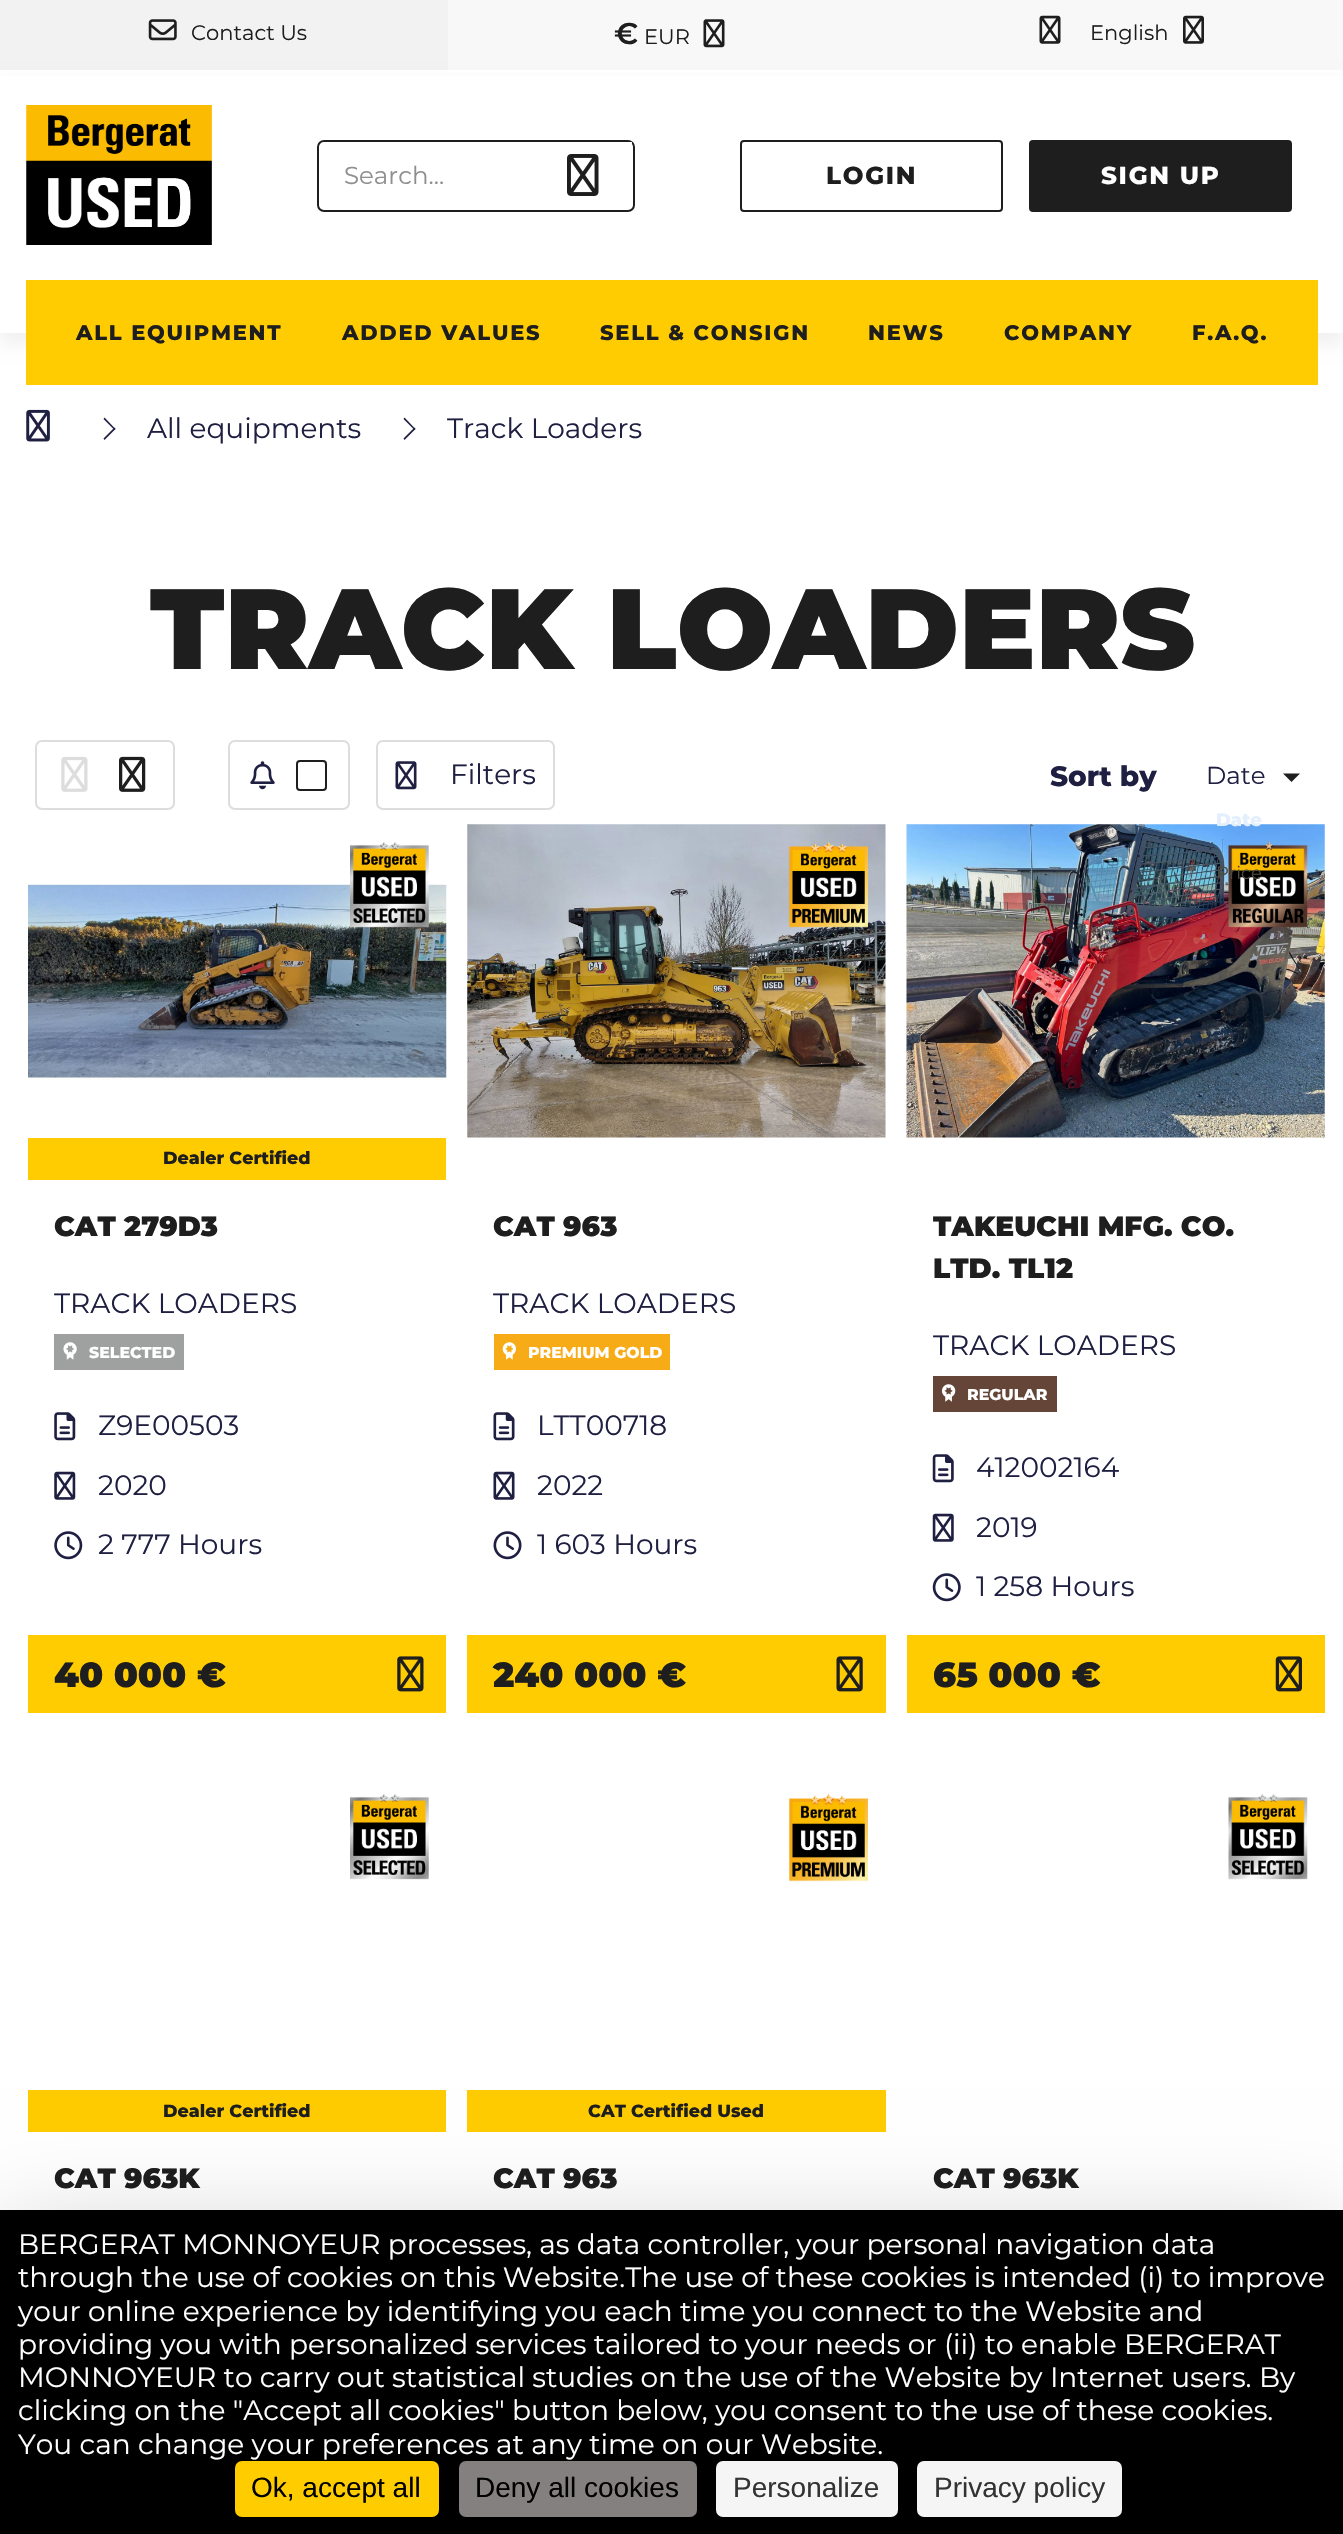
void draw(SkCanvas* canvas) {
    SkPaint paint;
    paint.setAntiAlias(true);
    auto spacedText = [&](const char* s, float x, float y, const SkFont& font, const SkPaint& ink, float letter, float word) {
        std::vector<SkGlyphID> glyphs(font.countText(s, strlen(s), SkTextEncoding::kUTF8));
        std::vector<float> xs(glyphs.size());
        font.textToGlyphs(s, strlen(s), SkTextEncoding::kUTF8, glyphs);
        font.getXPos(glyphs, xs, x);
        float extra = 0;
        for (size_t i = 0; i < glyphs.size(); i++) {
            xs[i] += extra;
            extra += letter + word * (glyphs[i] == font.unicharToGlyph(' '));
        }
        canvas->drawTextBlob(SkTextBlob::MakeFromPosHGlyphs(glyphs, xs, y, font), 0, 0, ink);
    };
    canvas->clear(0xFFFFFFFF);
    paint.setColor(0xFFF8F8F8);
    canvas->drawRect(SkRect::MakeXYWH(448, 0, 895, 70), paint);
    paint.setColor(0xFFF2F2F2);
    canvas->drawRect(SkRect::MakeXYWH(0, 0, 448, 70), paint);
    canvas->drawImageRect(SkImages::DeferredFromEncodedData(SkData::MakeFromFileName("img1.png")), SkRect::MakeXYWH(148, 19, 29, 22), SkSamplingOptions());
    SkFont font1(fontMgr->matchFamilyStyle("Montserrat", SkFontStyle::Normal()), 21);
    font1.setSubpixel(true);
    paint.setColor(0xFF1E1E1E);
    canvas->drawString("Contact Us", 191, 40, font1, paint);
    SkFont font2(fontMgr->matchFamilyStyle("Montserrat", SkFontStyle(600, SkFontStyle::kNormal_Width, SkFontStyle::kUpright_Slant)), 30);
    font2.setSubpixel(true);
    canvas->drawString("€", 614, 44, font2, paint);
    canvas->drawString("EUR", 644, 44, font1, paint);
    canvas->drawImageRect(SkImages::DeferredFromEncodedData(SkData::MakeFromFileName("img2.png")), SkRect::MakeXYWH(703, 19, 22, 29), SkSamplingOptions());
    canvas->drawImageRect(SkImages::DeferredFromEncodedData(SkData::MakeFromFileName("img3.png")), SkRect::MakeXYWH(1039, 15, 22, 29), SkSamplingOptions());
    canvas->drawString("English", 1090, 40, font1, paint);
    canvas->drawImageRect(SkImages::DeferredFromEncodedData(SkData::MakeFromFileName("img4.png")), SkRect::MakeXYWH(1183, 15, 21, 29), SkSamplingOptions());
    paint.setColor(0x0D000000);
    paint.setMaskFilter(SkMaskFilter::MakeBlur(kNormal_SkBlurStyle, 7));
    canvas->drawRect(SkRect::MakeXYWH(0, 82, 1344, 263), paint);
    paint.setMaskFilter(nullptr);
    paint.setColor(0xFFFFFFFF);
    canvas->drawRect(SkRect::MakeXYWH(0, 76, 1343, 257), paint);
    canvas->drawImageRect(SkImages::DeferredFromEncodedData(SkData::MakeFromFileName("img5.png")), SkRect::MakeXYWH(26, 105, 186, 140), SkSamplingOptions());
    paint.setStyle(SkPaint::kStroke_Style);
    paint.setStrokeWidth(2);
    paint.setColor(0xFF1E1E1E);
    canvas->drawRoundRect(SkRect::MakeXYWH(318, 141, 316, 70), 6, 6, paint);
    SkFont font3(fontMgr->matchFamilyStyle("Montserrat", SkFontStyle::Normal()), 24.5f);
    font3.setSubpixel(true);
    paint.setStyle(SkPaint::kFill_Style);
    paint.setColor(0xFF8F8F8F);
    canvas->drawString("Search...", 344, 184, font3, paint);
    paint.setColor(0xFFFFFFFF);
    canvas->drawRect(SkRect::MakeXYWH(628, 142, 4, 2), paint);
    canvas->drawImageRect(SkImages::DeferredFromEncodedData(SkData::MakeFromFileName("img6.png")), SkRect::MakeXYWH(567, 154, 32, 42), SkSamplingOptions());
    paint.setStyle(SkPaint::kStroke_Style);
    paint.setColor(0xFF1E1E1E);
    canvas->drawRoundRect(SkRect::MakeXYWH(741, 141, 261, 70), 3, 3, paint);
    SkFont font4(fontMgr->matchFamilyStyle("Montserrat", SkFontStyle(800, SkFontStyle::kNormal_Width, SkFontStyle::kUpright_Slant)), 24.5f);
    font4.setSubpixel(true);
    paint.setStyle(SkPaint::kFill_Style);
    spacedText("LOGIN", 826, 184, font4, paint, 1.75f, 0);
    canvas->drawRoundRect(SkRect::MakeXYWH(1030, 141, 261, 70), 3, 3, paint);
    paint.setStyle(SkPaint::kStroke_Style);
    canvas->drawRoundRect(SkRect::MakeXYWH(1030, 141, 261, 70), 3, 3, paint);
    paint.setStyle(SkPaint::kFill_Style);
    paint.setColor(0xFFFFFFFF);
    spacedText("SIGN UP", 1101, 184, font4, paint, 1.75f, 0);
    paint.setColor(0xFFFFCC01);
    canvas->drawRect(SkRect::MakeXYWH(26, 280, 1292, 105), paint);
    SkFont font5(fontMgr->matchFamilyStyle("Montserrat", SkFontStyle(800, SkFontStyle::kNormal_Width, SkFontStyle::kUpright_Slant)), 21);
    font5.setSubpixel(true);
    paint.setColor(0xFF1E1E1E);
    spacedText("ALL EQUIPMENT", 76, 340, font5, paint, 1.75f, 0);
    spacedText("ADDED VALUES", 342, 340, font5, paint, 1.75f, 0);
    spacedText("SELL & CONSIGN", 600, 340, font5, paint, 1.75f, 0);
    spacedText("NEWS", 868, 340, font5, paint, 1.75f, 0);
    spacedText("COMPANY", 1004, 340, font5, paint, 1.75f, 0);
    spacedText("F.A.Q.", 1192, 340, font5, paint, 1.75f, 0);
    canvas->drawImageRect(SkImages::DeferredFromEncodedData(SkData::MakeFromFileName("img7.png")), SkRect::MakeXYWH(26, 409, 24, 33), SkSamplingOptions());
    paint.setColor(0xFF1F1F42);
    canvas->drawPath(SkPathBuilder().moveTo(103.5f, 419).lineTo(104.5f, 417.5f).lineTo(115.5f, 429).lineTo(114.5f, 430).close().detach(), paint);
    canvas->drawPath(SkPathBuilder().moveTo(103.5f, 438.5f).lineTo(114.5f, 427.5f).lineTo(115.5f, 429).lineTo(104.5f, 440).close().detach(), paint);
    SkFont font6(fontMgr->matchFamilyStyle("Montserrat", SkFontStyle::Normal()), 28);
    font6.setSubpixel(true);
    canvas->drawString("All equipments", 147, 438, font6, paint);
    canvas->drawPath(SkPathBuilder().moveTo(403.5f, 419).lineTo(404.5f, 417.5f).lineTo(415.5f, 429).lineTo(414.5f, 430).close().detach(), paint);
    canvas->drawPath(SkPathBuilder().moveTo(403.5f, 438.5f).lineTo(414.5f, 427.5f).lineTo(415.5f, 429).lineTo(404.5f, 440).close().detach(), paint);
    canvas->drawString("Track Loaders", 447, 438, font6, paint);
    SkFont font7(fontMgr->matchFamilyStyle("Montserrat", SkFontStyle(900, SkFontStyle::kNormal_Width, SkFontStyle::kUpright_Slant)), 113.75f);
    font7.setSubpixel(true);
    paint.setColor(0xFF1E1E1E);
    canvas->drawString("TRACK LOADERS", 150, 669, font7, paint);
    paint.setStyle(SkPaint::kStroke_Style);
    paint.setColor(0xFFDDDDDD);
    canvas->drawRoundRect(SkRect::MakeXYWH(36, 741, 138, 68), 6, 6, paint);
    canvas->drawImageRect(SkImages::DeferredFromEncodedData(SkData::MakeFromFileName("img8.png")), SkRect::MakeXYWH(61, 756, 27, 36), SkSamplingOptions());
    canvas->drawImageRect(SkImages::DeferredFromEncodedData(SkData::MakeFromFileName("img9.png")), SkRect::MakeXYWH(119, 756, 27, 36), SkSamplingOptions());
    canvas->drawRoundRect(SkRect::MakeXYWH(229, 741, 120, 68), 6, 6, paint);
    canvas->drawImageRect(SkImages::DeferredFromEncodedData(SkData::MakeFromFileName("img10.png")), SkRect::MakeXYWH(250, 761, 25, 29), SkSamplingOptions());
    paint.setColor(0xFF1E1E1E);
    canvas->drawRoundRect(SkRect::MakeXYWH(297, 761, 29, 29), 3, 3, paint);
    paint.setColor(0xFFDDDDDD);
    canvas->drawRoundRect(SkRect::MakeXYWH(377, 741, 177, 68), 6, 6, paint);
    canvas->drawImageRect(SkImages::DeferredFromEncodedData(SkData::MakeFromFileName("img11.png")), SkRect::MakeXYWH(395, 761, 22, 29), SkSamplingOptions());
    paint.setStyle(SkPaint::kFill_Style);
    paint.setColor(0xFF1F1F42);
    canvas->drawString("Filters", 450, 784, font6, paint);
    SkFont font8(fontMgr->matchFamilyStyle("Montserrat", SkFontStyle(800, SkFontStyle::kNormal_Width, SkFontStyle::kUpright_Slant)), 28);
    font8.setSubpixel(true);
    canvas->drawString("Sort by", 1050, 786, font8, paint);
    canvas->drawString("Date", 1206, 784, font3, paint);
    paint.setColor(0xFF1E1E1E);
    canvas->drawPath(SkPathBuilder().moveTo(1283, 773.5f).lineTo(1300, 773.5f).lineTo(1291.5f, 782).close().detach(), paint);
    canvas->drawImageRect(SkImages::DeferredFromEncodedData(SkData::MakeFromFileName("img26.png")), SkRect::MakeXYWH(906, 824, 419, 314), SkSamplingOptions());
    SkFont font9(fontMgr->matchFamilyStyle("Montserrat", SkFontStyle(800, SkFontStyle::kNormal_Width, SkFontStyle::kUpright_Slant)), 18);
    font9.setSubpixel(true);
    paint.setColor(0xFFE3EFFD);
    canvas->drawString("Date", 1216, 826, font9, paint);
    canvas->drawImageRect(SkImages::DeferredFromEncodedData(SkData::MakeFromFileName("img27.png")), SkRect::MakeXYWH(1228, 841, 80, 87), SkSamplingOptions());
    SkFont font10(fontMgr->matchFamilyStyle("Montserrat", SkFontStyle::Normal()), 18);
    font10.setSubpixel(true);
    paint.setColor(0xFF4D4B39);
    canvas->drawString("Price", 1216, 879, font10, paint);
    canvas->drawImageRect(SkImages::DeferredFromEncodedData(SkData::MakeFromFileName("img13.png")), SkRect::MakeXYWH(28, 884, 419, 196), SkSamplingOptions());
    canvas->drawImageRect(SkImages::DeferredFromEncodedData(SkData::MakeFromFileName("img12.png")), SkRect::MakeXYWH(350, 841, 79, 87), SkSamplingOptions());
    paint.setColor(0xFFFFCC01);
    canvas->drawRect(SkRect::MakeXYWH(28, 1138, 418, 42), paint);
    SkFont font11(fontMgr->matchFamilyStyle("Montserrat", SkFontStyle(800, SkFontStyle::kNormal_Width, SkFontStyle::kUpright_Slant)), 17.5f);
    font11.setSubpixel(true);
    paint.setColor(0xFF1E1E1E);
    canvas->drawString("Dealer Certified", 163, 1164, font11, paint);
    SkFont font12(fontMgr->matchFamilyStyle("Montserrat", SkFontStyle(900, SkFontStyle::kNormal_Width, SkFontStyle::kUpright_Slant)), 28);
    font12.setSubpixel(true);
    canvas->drawString("CAT 279D3", 54, 1236, font12, paint);
    paint.setColor(0xFF1F1F42);
    canvas->drawString("TRACK LOADERS", 54, 1313, font6, paint);
    paint.setColor(0xFF9FA0A0);
    canvas->drawRect(SkRect::MakeXYWH(54, 1334, 130, 36), paint);
    canvas->drawImageRect(SkImages::DeferredFromEncodedData(SkData::MakeFromFileName("img14.png")), SkRect::MakeXYWH(63, 1342, 14, 18), SkSamplingOptions());
    SkFont font13(fontMgr->matchFamilyStyle("Montserrat", SkFontStyle(800, SkFontStyle::kNormal_Width, SkFontStyle::kUpright_Slant)), 15.75f);
    font13.setSubpixel(true);
    paint.setColor(0xFFFFFFFF);
    canvas->drawString("SELECTED", 89, 1358, font13, paint);
    canvas->drawImageRect(SkImages::DeferredFromEncodedData(SkData::MakeFromFileName("img15.png")), SkRect::MakeXYWH(54, 1412, 22, 29), SkSamplingOptions());
    paint.setColor(0xFF1F1F42);
    canvas->drawString("Z9E00503", 98, 1435, font6, paint);
    canvas->drawImageRect(SkImages::DeferredFromEncodedData(SkData::MakeFromFileName("img16.png")), SkRect::MakeXYWH(54, 1471, 22, 29), SkSamplingOptions());
    canvas->drawString("2020", 98, 1495, font6, paint);
    canvas->drawImageRect(SkImages::DeferredFromEncodedData(SkData::MakeFromFileName("img17.png")), SkRect::MakeXYWH(54, 1531, 29, 29), SkSamplingOptions());
    canvas->drawString("2 777 Hours", 98, 1554, font6, paint);
    paint.setColor(0xFFFFCC01);
    canvas->drawRect(SkRect::MakeXYWH(28, 1635, 418, 78), paint);
    SkFont font14(fontMgr->matchFamilyStyle("Montserrat", SkFontStyle(900, SkFontStyle::kNormal_Width, SkFontStyle::kUpright_Slant)), 35);
    font14.setSubpixel(true);
    paint.setColor(0xFF1E1E1E);
    canvas->drawString("40 000 €", 54, 1687, font14, paint);
    canvas->drawImageRect(SkImages::DeferredFromEncodedData(SkData::MakeFromFileName("img18.png")), SkRect::MakeXYWH(397, 1656, 27, 36), SkSamplingOptions());
    canvas->drawImageRect(SkImages::DeferredFromEncodedData(SkData::MakeFromFileName("img19.png")), SkRect::MakeXYWH(467, 824, 419, 314), SkSamplingOptions());
    canvas->drawImageRect(SkImages::DeferredFromEncodedData(SkData::MakeFromFileName("img20.png")), SkRect::MakeXYWH(789, 841, 79, 87), SkSamplingOptions());
    canvas->drawString("CAT 963", 493, 1236, font12, paint);
    paint.setColor(0xFF1F1F42);
    canvas->drawString("TRACK LOADERS", 493, 1313, font6, paint);
    paint.setColor(0xFFF7AB16);
    canvas->drawRect(SkRect::MakeXYWH(494, 1334, 176, 36), paint);
    canvas->drawImageRect(SkImages::DeferredFromEncodedData(SkData::MakeFromFileName("img21.png")), SkRect::MakeXYWH(502, 1342, 14, 18), SkSamplingOptions());
    paint.setColor(0xFFFFFFFF);
    canvas->drawString("PREMIUM GOLD", 528, 1358, font13, paint);
    canvas->drawImageRect(SkImages::DeferredFromEncodedData(SkData::MakeFromFileName("img22.png")), SkRect::MakeXYWH(493, 1412, 22, 29), SkSamplingOptions());
    paint.setColor(0xFF1F1F42);
    canvas->drawString("LTT00718", 537, 1435, font6, paint);
    canvas->drawImageRect(SkImages::DeferredFromEncodedData(SkData::MakeFromFileName("img23.png")), SkRect::MakeXYWH(493, 1471, 22, 29), SkSamplingOptions());
    canvas->drawString("2022", 537, 1495, font6, paint);
    canvas->drawImageRect(SkImages::DeferredFromEncodedData(SkData::MakeFromFileName("img24.png")), SkRect::MakeXYWH(493, 1531, 29, 29), SkSamplingOptions());
    canvas->drawString("1 603 Hours", 537, 1554, font6, paint);
    paint.setColor(0xFFFFCC01);
    canvas->drawRect(SkRect::MakeXYWH(467, 1635, 419, 78), paint);
    paint.setColor(0xFF1E1E1E);
    canvas->drawString("240 000 €", 493, 1687, font14, paint);
    canvas->drawImageRect(SkImages::DeferredFromEncodedData(SkData::MakeFromFileName("img25.png")), SkRect::MakeXYWH(836, 1656, 27, 36), SkSamplingOptions());
    canvas->drawString("TAKEUCHI MFG. CO.", 933, 1236, font12, paint);
    canvas->drawString("LTD. TL12", 933, 1278, font12, paint);
    paint.setColor(0xFF1F1F42);
    canvas->drawString("TRACK LOADERS", 933, 1355, font6, paint);
    paint.setColor(0xFF644538);
    canvas->drawRect(SkRect::MakeXYWH(933, 1376, 124, 36), paint);
    canvas->drawImageRect(SkImages::DeferredFromEncodedData(SkData::MakeFromFileName("img28.png")), SkRect::MakeXYWH(942, 1384, 14, 18), SkSamplingOptions());
    paint.setColor(0xFFFFFFFF);
    canvas->drawString("REGULAR", 967, 1400, font13, paint);
    canvas->drawImageRect(SkImages::DeferredFromEncodedData(SkData::MakeFromFileName("img29.png")), SkRect::MakeXYWH(932, 1454, 22, 29), SkSamplingOptions());
    paint.setColor(0xFF1F1F42);
    canvas->drawString("412002164", 976, 1477, font6, paint);
    canvas->drawImageRect(SkImages::DeferredFromEncodedData(SkData::MakeFromFileName("img30.png")), SkRect::MakeXYWH(932, 1513, 22, 29), SkSamplingOptions());
    canvas->drawString("2019", 976, 1537, font6, paint);
    canvas->drawImageRect(SkImages::DeferredFromEncodedData(SkData::MakeFromFileName("img31.png")), SkRect::MakeXYWH(932, 1573, 29, 29), SkSamplingOptions());
    canvas->drawString("1 258 Hours", 976, 1596, font6, paint);
    paint.setColor(0xFFFFCC01);
    canvas->drawRect(SkRect::MakeXYWH(907, 1635, 418, 78), paint);
    paint.setColor(0xFF1E1E1E);
    canvas->drawString("65 000 €", 933, 1687, font14, paint);
    canvas->drawImageRect(SkImages::DeferredFromEncodedData(SkData::MakeFromFileName("img32.png")), SkRect::MakeXYWH(1275, 1656, 27, 36), SkSamplingOptions());
    canvas->drawImageRect(SkImages::DeferredFromEncodedData(SkData::MakeFromFileName("img33.png")), SkRect::MakeXYWH(350, 1793, 79, 87), SkSamplingOptions());
    paint.setColor(0xFFFFCC01);
    canvas->drawRect(SkRect::MakeXYWH(28, 2090, 418, 42), paint);
    paint.setColor(0xFF1E1E1E);
    canvas->drawString("Dealer Certified", 163, 2117, font11, paint);
    canvas->drawString("CAT 963K", 54, 2188, font12, paint);
    canvas->drawImageRect(SkImages::DeferredFromEncodedData(SkData::MakeFromFileName("img34.png")), SkRect::MakeXYWH(789, 1793, 79, 89), SkSamplingOptions());
    paint.setColor(0xFFFFCC01);
    canvas->drawRect(SkRect::MakeXYWH(467, 2090, 419, 42), paint);
    paint.setColor(0xFF1E1E1E);
    canvas->drawString("CAT Certified Used", 588, 2117, font11, paint);
    canvas->drawString("CAT 963", 493, 2188, font12, paint);
    canvas->drawImageRect(SkImages::DeferredFromEncodedData(SkData::MakeFromFileName("img35.png")), SkRect::MakeXYWH(1228, 1793, 80, 87), SkSamplingOptions());
    canvas->drawString("CAT 963K", 933, 2188, font12, paint);
    paint.setColor(0x40000000);
    paint.setMaskFilter(SkMaskFilter::MakeBlur(kNormal_SkBlurStyle, 52.5f));
    canvas->drawRect(SkRect::MakeXYWH(0, 2245, 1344, 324), paint);
    paint.setMaskFilter(nullptr);
    paint.setColor(0xFF000000);
    canvas->drawRect(SkRect::MakeXYWH(0, 2210, 1343, 324), paint);
    paint.setColor(0xFFFFFFFF);
    canvas->drawString("BERGERAT MONNOYEUR processes, as data controller, your personal navigation data", 18, 2254, font6, paint);
    canvas->drawString("through the use of cookies on this Website.The use of these cookies is intended (i) to improve", 18, 2287, font6, paint);
    canvas->drawString("your online experience by identifying you each time you connect to the Website and", 18, 2321, font6, paint);
    canvas->drawString("providing you with personalized services tailored to your needs or (ii) to enable BERGERAT", 18, 2354, font6, paint);
    canvas->drawString("MONNOYEUR to carry out statistical studies on the use of the Website by Internet users. By", 18, 2387, font6, paint);
    canvas->drawString("clicking on the \"Accept all cookies\" button below, you consent to the use of these cookies.", 18, 2420, font6, paint);
    canvas->drawString("You can change your preferences at any time on our Website.", 18, 2454, font6, paint);
    paint.setColor(0xFFFFCC00);
    canvas->drawRoundRect(SkRect::MakeXYWH(235, 2461, 204, 56), 7, 7, paint);
    SkFont font15(fontMgr->matchFamilyStyle("Liberation Sans", SkFontStyle::Normal()), 28);
    font15.setSubpixel(true);
    paint.setColor(0xFF000000);
    canvas->drawString("Ok, accept all", 251, 2497, font15, paint);
    paint.setColor(0xFF858080);
    canvas->drawRoundRect(SkRect::MakeXYWH(459, 2461, 238, 56), 7, 7, paint);
    paint.setColor(0xFF000000);
    canvas->drawString("Deny all cookies", 475, 2497, font15, paint);
    paint.setColor(0xFFF5F5F5);
    canvas->drawRoundRect(SkRect::MakeXYWH(716, 2461, 182, 56), 7, 7, paint);
    paint.setColor(0xFF333333);
    canvas->drawString("Personalize", 733, 2497, font15, paint);
    paint.setColor(0xFFF5F5F5);
    canvas->drawRoundRect(SkRect::MakeXYWH(917, 2461, 205, 56), 7, 7, paint);
    paint.setColor(0xFF333333);
    canvas->drawString("Privacy policy", 934, 2497, font15, paint);
}
